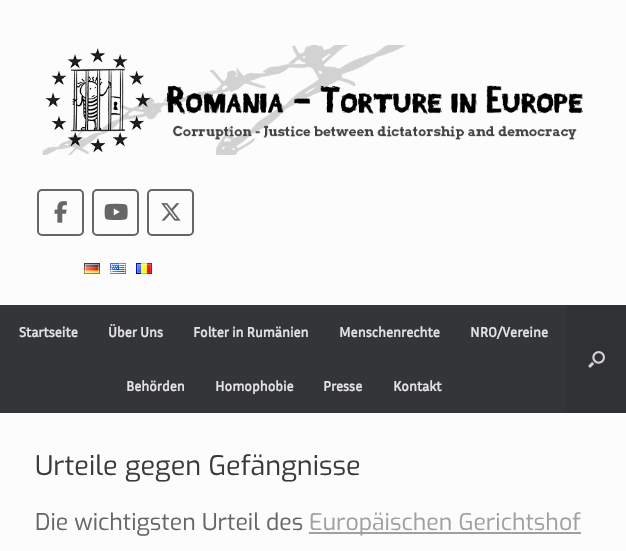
void draw(SkCanvas* canvas) {
    SkPaint paint;
    paint.setAntiAlias(true);
    canvas->clear(0xFFFCFCFC);
    canvas->drawImageRect(SkImages::DeferredFromEncodedData(SkData::MakeFromFileName("img1.png")), SkRect::MakeXYWH(42, 45, 541, 110), SkSamplingOptions());
    paint.setStyle(SkPaint::kStroke_Style);
    paint.setStrokeWidth(2);
    paint.setColor(0xFF666666);
    canvas->drawRoundRect(SkRect::MakeXYWH(38, 190, 45, 45), 4, 4, paint);
    canvas->drawImageRect(SkImages::DeferredFromEncodedData(SkData::MakeFromFileName("img2.png")), SkRect::MakeXYWH(54, 201, 13, 22), SkSamplingOptions());
    canvas->drawRoundRect(SkRect::MakeXYWH(93, 190, 45, 45), 4, 4, paint);
    canvas->drawImageRect(SkImages::DeferredFromEncodedData(SkData::MakeFromFileName("img3.png")), SkRect::MakeXYWH(104, 203, 24, 17), SkSamplingOptions());
    canvas->drawRoundRect(SkRect::MakeXYWH(148, 190, 45, 45), 4, 4, paint);
    canvas->drawImageRect(SkImages::DeferredFromEncodedData(SkData::MakeFromFileName("img4.png")), SkRect::MakeXYWH(161, 203, 20, 18), SkSamplingOptions());
    canvas->drawImageRect(SkImages::DeferredFromEncodedData(SkData::MakeFromFileName("img5.png")), SkRect::MakeXYWH(84, 263, 16, 11), SkSamplingOptions());
    canvas->drawImageRect(SkImages::DeferredFromEncodedData(SkData::MakeFromFileName("img6.png")), SkRect::MakeXYWH(110, 263, 16, 11), SkSamplingOptions());
    canvas->drawImageRect(SkImages::DeferredFromEncodedData(SkData::MakeFromFileName("img7.png")), SkRect::MakeXYWH(136, 263, 16, 11), SkSamplingOptions());
    paint.setStyle(SkPaint::kFill_Style);
    paint.setColor(0xFF343538);
    canvas->drawRect(SkRect::MakeXYWH(0, 305, 567, 108), paint);
    SkFont font1(fontMgr->matchFamilyStyle("Inria Sans", SkFontStyle::Bold()), 14);
    font1.setSubpixel(true);
    paint.setColor(0xFFE2E2E2);
    canvas->drawString("Startseite", 19, 337, font1, paint);
    canvas->drawString("Über Uns", 108, 337, font1, paint);
    canvas->drawString("Folter in Rumänien", 193, 337, font1, paint);
    canvas->drawString("Menschenrechte", 339, 337, font1, paint);
    canvas->drawString("NRO/Vereine", 470, 337, font1, paint);
    canvas->drawString("Behörden", 126, 391, font1, paint);
    canvas->drawString("Homophobie", 215, 391, font1, paint);
    canvas->drawString("Presse", 323, 391, font1, paint);
    canvas->drawString("Kontakt", 393, 391, font1, paint);
    paint.setColor(0xFF303134);
    canvas->drawRect(SkRect::MakeXYWH(567, 305, 59, 108), paint);
    canvas->drawImageRect(SkImages::DeferredFromEncodedData(SkData::MakeFromFileName("img8.png")), SkRect::MakeXYWH(588, 351, 17, 17), SkSamplingOptions());
    SkFont font2(fontMgr->matchFamilyStyle("Exo", SkFontStyle::Normal()), 27);
    font2.setSubpixel(true);
    paint.setColor(0xFF3B3B3B);
    canvas->drawString("Urteile gegen Gefängnisse", 35, 475, font2, paint);
    SkFont font3(fontMgr->matchFamilyStyle("Exo", SkFontStyle::Normal()), 23);
    font3.setSubpixel(true);
    paint.setColor(0xFF666666);
    canvas->drawString("Die wichtigsten Urteil des", 35, 530, font3, paint);
    paint.setColor(0xFFA0A0A0);
    canvas->drawRect(SkRect::MakeXYWH(309, 532, 272, 2), paint);
    canvas->drawString("Europäischen Gerichtshof", 309, 530, font3, paint);
}
